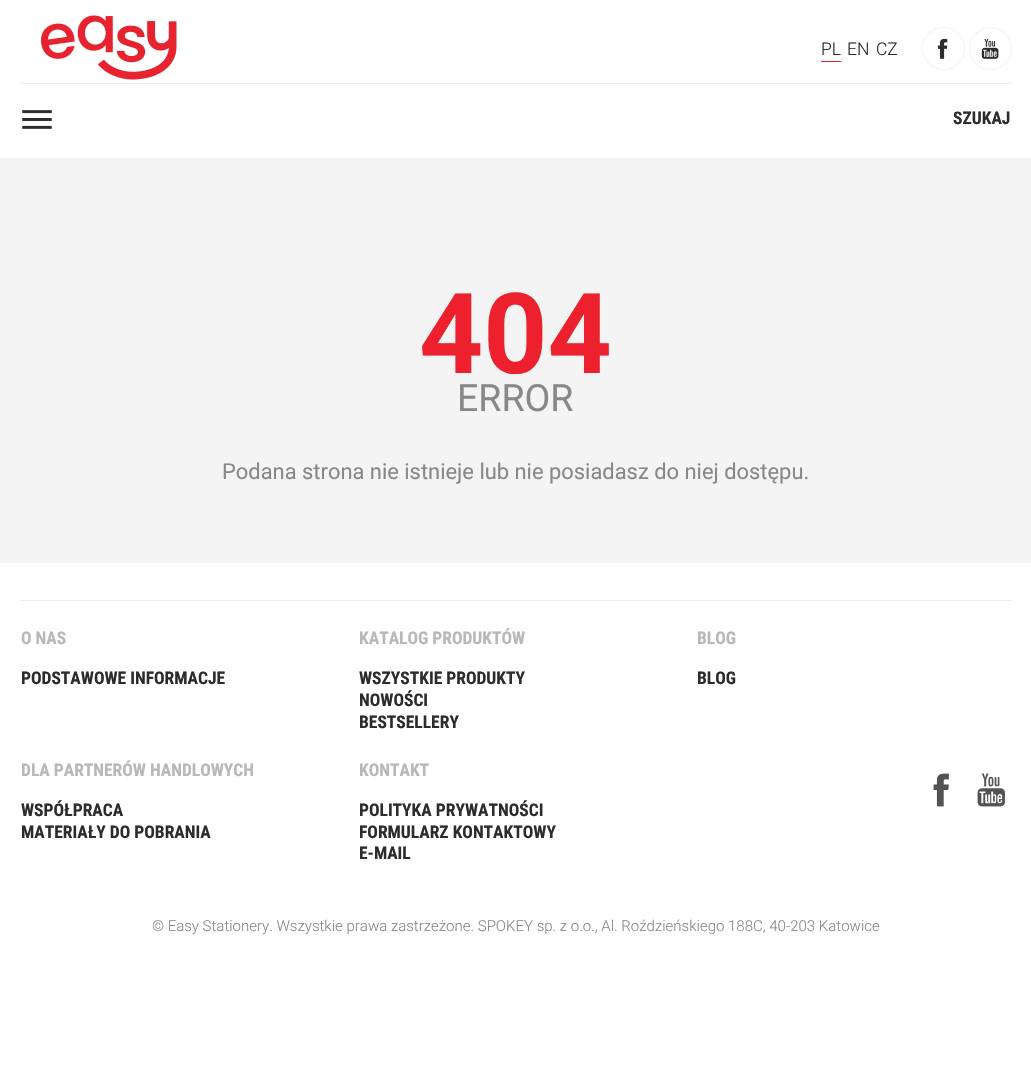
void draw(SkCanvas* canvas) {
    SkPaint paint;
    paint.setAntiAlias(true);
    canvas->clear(0xFFFFFFFF);
    canvas->drawImageRect(SkImages::DeferredFromEncodedData(SkData::MakeFromFileName("img1.png")), SkRect::MakeXYWH(41, 15, 136, 65), SkSamplingOptions());
    SkFont font1(fontMgr->matchFamilyStyle("Roboto", SkFontStyle(300, SkFontStyle::kNormal_Width, SkFontStyle::kUpright_Slant)), 17.5f);
    font1.setSubpixel(true);
    paint.setColor(0xFF2C2C2C);
    canvas->drawString("PL", 821, 55, font1, paint);
    paint.setColor(0xFFED212E);
    canvas->drawRect(SkRect::MakeXYWH(821, 61, 20, 1), paint);
    paint.setColor(0xFF2C2C2C);
    canvas->drawString("EN", 847, 55, font1, paint);
    canvas->drawString("CZ", 876, 55, font1, paint);
    paint.setColor(0x1F000000);
    paint.setMaskFilter(SkMaskFilter::MakeBlur(kNormal_SkBlurStyle, 1));
    canvas->drawRoundRect(SkRect::MakeXYWH(923, 28, 41, 41), 20.5f, 20.5f, paint);
    paint.setMaskFilter(nullptr);
    paint.setColor(0xFFFFFFFF);
    canvas->drawCircle(943.5f, 48.5f, 20.5f, paint);
    canvas->drawImageRect(SkImages::DeferredFromEncodedData(SkData::MakeFromFileName("img2.png")), SkRect::MakeXYWH(937, 38, 11, 21), SkSamplingOptions());
    paint.setColor(0x1F000000);
    paint.setMaskFilter(SkMaskFilter::MakeBlur(kNormal_SkBlurStyle, 1));
    canvas->drawRoundRect(SkRect::MakeXYWH(970, 28, 41, 41), 20.5f, 20.5f, paint);
    paint.setMaskFilter(nullptr);
    paint.setColor(0xFFFFFFFF);
    canvas->drawCircle(990.5f, 48.5f, 20.5f, paint);
    canvas->drawImageRect(SkImages::DeferredFromEncodedData(SkData::MakeFromFileName("img3.png")), SkRect::MakeXYWH(981, 38, 18, 21), SkSamplingOptions());
    paint.setColor(0xFFEEEEEE);
    canvas->drawRect(SkRect::MakeXYWH(21, 83, 990, 1), paint);
    canvas->drawImageRect(SkImages::DeferredFromEncodedData(SkData::MakeFromFileName("img4.png")), SkRect::MakeXYWH(22, 110, 30, 19), SkSamplingOptions());
    SkFont font2(fontMgr->matchFamilyStyle("Roboto Condensed", SkFontStyle::Bold()), 17.5f);
    font2.setSubpixel(true);
    paint.setColor(0xFF2C2C2C);
    canvas->drawString("SZUKAJ", 953, 124, font2, paint);
    paint.setColor(0xFFF4F4F4);
    canvas->drawRect(SkRect::MakeXYWH(0, 158, 1031, 405), paint);
    SkFont font3(fontMgr->matchFamilyStyle("Roboto", SkFontStyle::Bold()), 112);
    font3.setSubpixel(true);
    paint.setColor(0xFFED212E);
    canvas->drawString("404", 419, 373, font3, paint);
    SkFont font4(fontMgr->matchFamilyStyle("Roboto", SkFontStyle::Normal()), 37.5f);
    font4.setSubpixel(true);
    paint.setColor(0xFF888888);
    canvas->drawString("ERROR", 457, 411, font4, paint);
    SkFont font5(fontMgr->matchFamilyStyle("Roboto", SkFontStyle::Normal()), 21.9f);
    font5.setSubpixel(true);
    canvas->drawString("Podana strona nie istnieje lub nie posiadasz do niej dostępu.", 222, 479, font5, paint);
    paint.setColor(0xFFEEEEEE);
    canvas->drawRect(SkRect::MakeXYWH(21, 600, 990, 1), paint);
    paint.setColor(0xFFB8B8B8);
    canvas->drawString("O NAS", 21, 644, font2, paint);
    paint.setColor(0xFF2C2C2C);
    canvas->drawString("PODSTAWOWE INFORMACJE", 21, 684, font2, paint);
    paint.setColor(0xFFB8B8B8);
    canvas->drawString("KATALOG PRODUKTÓW", 359, 644, font2, paint);
    paint.setColor(0xFF2C2C2C);
    canvas->drawString("WSZYSTKIE PRODUKTY", 359, 684, font2, paint);
    canvas->drawString("NOWOŚCI", 359, 706, font2, paint);
    canvas->drawString("BESTSELLERY", 359, 728, font2, paint);
    paint.setColor(0xFFB8B8B8);
    canvas->drawString("BLOG", 697, 644, font2, paint);
    paint.setColor(0xFF2C2C2C);
    canvas->drawString("BLOG", 697, 684, font2, paint);
    paint.setColor(0xFFB8B8B8);
    canvas->drawString("DLA PARTNERÓW HANDLOWYCH", 21, 776, font2, paint);
    paint.setColor(0xFF2C2C2C);
    canvas->drawString("WSPÓŁPRACA", 21, 816, font2, paint);
    canvas->drawString("MATERIAŁY DO POBRANIA", 21, 838, font2, paint);
    paint.setColor(0xFFB8B8B8);
    canvas->drawString("KONTAKT", 359, 776, font2, paint);
    paint.setColor(0xFF2C2C2C);
    canvas->drawString("POLITYKA PRYWATNOŚCI", 359, 816, font2, paint);
    canvas->drawString("FORMULARZ KONTAKTOWY", 359, 838, font2, paint);
    canvas->drawString("E-MAIL", 359, 859, font2, paint);
    canvas->drawImageRect(SkImages::DeferredFromEncodedData(SkData::MakeFromFileName("img5.png")), SkRect::MakeXYWH(933, 773, 16, 34), SkSamplingOptions());
    canvas->drawImageRect(SkImages::DeferredFromEncodedData(SkData::MakeFromFileName("img6.png")), SkRect::MakeXYWH(977, 773, 28, 34), SkSamplingOptions());
    SkFont font6(fontMgr->matchFamilyStyle("Roboto", SkFontStyle(300, SkFontStyle::kNormal_Width, SkFontStyle::kUpright_Slant)), 15);
    font6.setSubpixel(true);
    paint.setColor(0xFF888888);
    canvas->drawString("© Easy Stationery. Wszystkie prawa zastrzeżone. SPOKEY sp. z o.o., Al. Roździeńskiego 188C, 40-203 Katowice", 152, 931, font6, paint);
}
